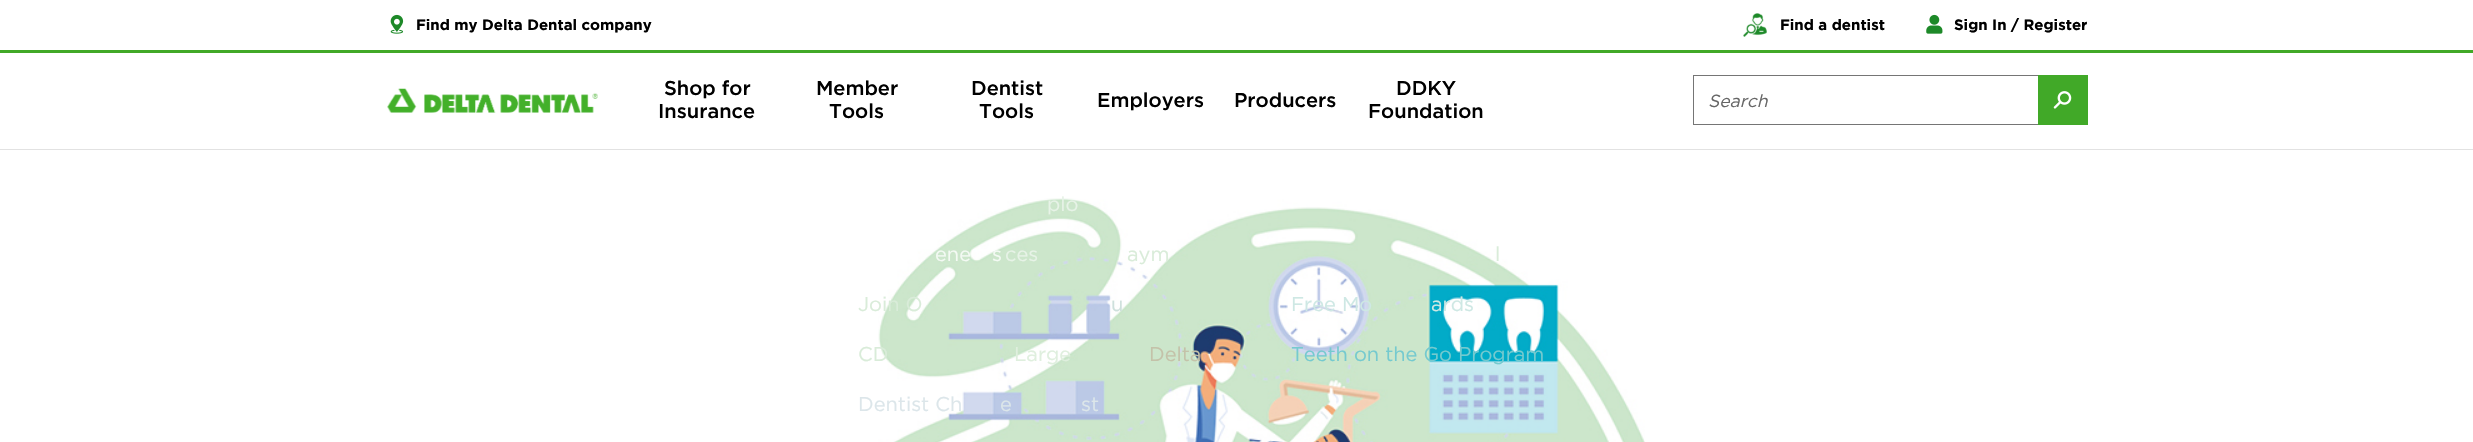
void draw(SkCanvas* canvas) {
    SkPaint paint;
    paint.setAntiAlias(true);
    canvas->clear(0xFFFFFFFF);
    canvas->drawImageRect(SkImages::DeferredFromEncodedData(SkData::MakeFromFileName("img1.png")), SkRect::MakeXYWH(390, 14, 14, 20), SkSamplingOptions());
    SkFont font1(fontMgr->matchFamilyStyle("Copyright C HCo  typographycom", SkFontStyle::Normal()), 15);
    font1.setSubpixel(true);
    paint.setColor(0xFF000000);
    canvas->drawString("Find my Delta Dental company", 416, 30, font1, paint);
    canvas->drawImageRect(SkImages::DeferredFromEncodedData(SkData::MakeFromFileName("img2.png")), SkRect::MakeXYWH(1743, 13, 24, 24), SkSamplingOptions());
    canvas->drawString("Find a dentist", 1780, 30, font1, paint);
    canvas->drawImageRect(SkImages::DeferredFromEncodedData(SkData::MakeFromFileName("img3.png")), SkRect::MakeXYWH(1926, 14, 17, 20), SkSamplingOptions());
    canvas->drawString("Sign In / Register", 1954, 30, font1, paint);
    paint.setColor(0xFF41A928);
    canvas->drawRect(SkRect::MakeXYWH(0, 50, 2473, 3), paint);
    paint.setColor(0xFFE2E2E2);
    canvas->drawRect(SkRect::MakeXYWH(0, 149, 2473, 1), paint);
    canvas->drawImageRect(SkImages::DeferredFromEncodedData(SkData::MakeFromFileName("img4.png")), SkRect::MakeXYWH(387, 88, 211, 25), SkSamplingOptions());
    SkFont font2(fontMgr->matchFamilyStyle("Copyright C HCo  typographycom", SkFontStyle(300, SkFontStyle::kNormal_Width, SkFontStyle::kUpright_Slant)), 20);
    font2.setSubpixel(true);
    paint.setColor(0xFF000000);
    canvas->drawString("Shop for", 664, 95, font2, paint);
    canvas->drawString("Insurance", 658, 118, font2, paint);
    canvas->drawString("Member", 816, 95, font2, paint);
    canvas->drawString("Tools", 829, 118, font2, paint);
    canvas->drawImageRect(SkImages::DeferredFromEncodedData(SkData::MakeFromFileName("img6.png")), SkRect::MakeXYWH(878, 198, 767, 244), SkSamplingOptions());
    SkFont font3(fontMgr->matchFamilyStyle("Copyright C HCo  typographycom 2", SkFontStyle(300, SkFontStyle::kNormal_Width, SkFontStyle::kUpright_Slant)), 20);
    font3.setSubpixel(true);
    paint.setColor(0xFFF4FAF4);
    canvas->drawString("ene", 935, 261, font3, paint);
    canvas->drawString("s", 992, 261, font3, paint);
    paint.setColor(0xFF000000);
    canvas->drawString("Dentist", 971, 95, font2, paint);
    canvas->drawString("Tools", 979, 118, font2, paint);
    paint.setColor(0xFFE7F3E7);
    canvas->drawString("ces", 1005, 261, font3, paint);
    paint.setColor(0xFFD9ECD9);
    canvas->drawString("Join O", 858, 311, font3, paint);
    canvas->drawString("CD", 858, 361, font3, paint);
    paint.setColor(0xFFDCE6EA);
    canvas->drawString("Dentist Ch", 858, 411, font3, paint);
    canvas->drawString("e", 1000, 411, font3, paint);
    canvas->drawString("st", 1081, 411, font3, paint);
    paint.setColor(0xFF000000);
    canvas->drawString("Employers", 1097, 107, font2, paint);
    paint.setColor(0xFFE7F3E7);
    canvas->drawString("plo", 1047, 211, font3, paint);
    paint.setColor(0xFFD9ECD9);
    canvas->drawString("aym", 1127, 261, font3, paint);
    paint.setColor(0xFFCEE0DC);
    canvas->drawString("u", 1111, 311, font3, paint);
    paint.setColor(0xFFDFEFDE);
    canvas->drawString("Large", 1014, 361, font3, paint);
    paint.setColor(0xFF000000);
    canvas->drawString("Producers", 1234, 107, font2, paint);
    paint.setColor(0xFFC4C2A9);
    canvas->drawString("Delta", 1149, 361, font3, paint);
    paint.setColor(0xFF000000);
    canvas->drawString("DDKY", 1396, 95, font2, paint);
    canvas->drawString("Foundation", 1368, 118, font2, paint);
    paint.setColor(0xFFD9ECD9);
    canvas->drawString("l", 1495, 261, font3, paint);
    paint.setColor(0xFFCEE8E4);
    canvas->drawString("Free Mo", 1291, 311, font3, paint);
    canvas->drawString("ards", 1431, 311, font3, paint);
    paint.setColor(0xFF75CACF);
    canvas->drawString("Teeth on the Go Program", 1291, 361, font3, paint);
    paint.setColor(0xFF757575);
    canvas->drawRect(SkRect::MakeXYWH(1693, 75, 345, 1), paint);
    canvas->drawRect(SkRect::MakeXYWH(1693, 124, 345, 1), paint);
    canvas->drawRect(SkRect::MakeXYWH(1693, 75, 1, 50), paint);
    SkFont font4(fontMgr->matchFamilyStyle("Copyright C HCo  typographycom", SkFontStyle(300, SkFontStyle::kNormal_Width, SkFontStyle::kItalic_Slant)), 17.5f);
    font4.setSubpixel(true);
    paint.setColor(0xFF666666);
    canvas->drawString("Search", 1708, 107, font4, paint);
    paint.setColor(0xFF41A928);
    canvas->drawRect(SkRect::MakeXYWH(2038, 75, 50, 50), paint);
    canvas->drawImageRect(SkImages::DeferredFromEncodedData(SkData::MakeFromFileName("img5.png")), SkRect::MakeXYWH(2053, 91, 19, 18), SkSamplingOptions());
}
